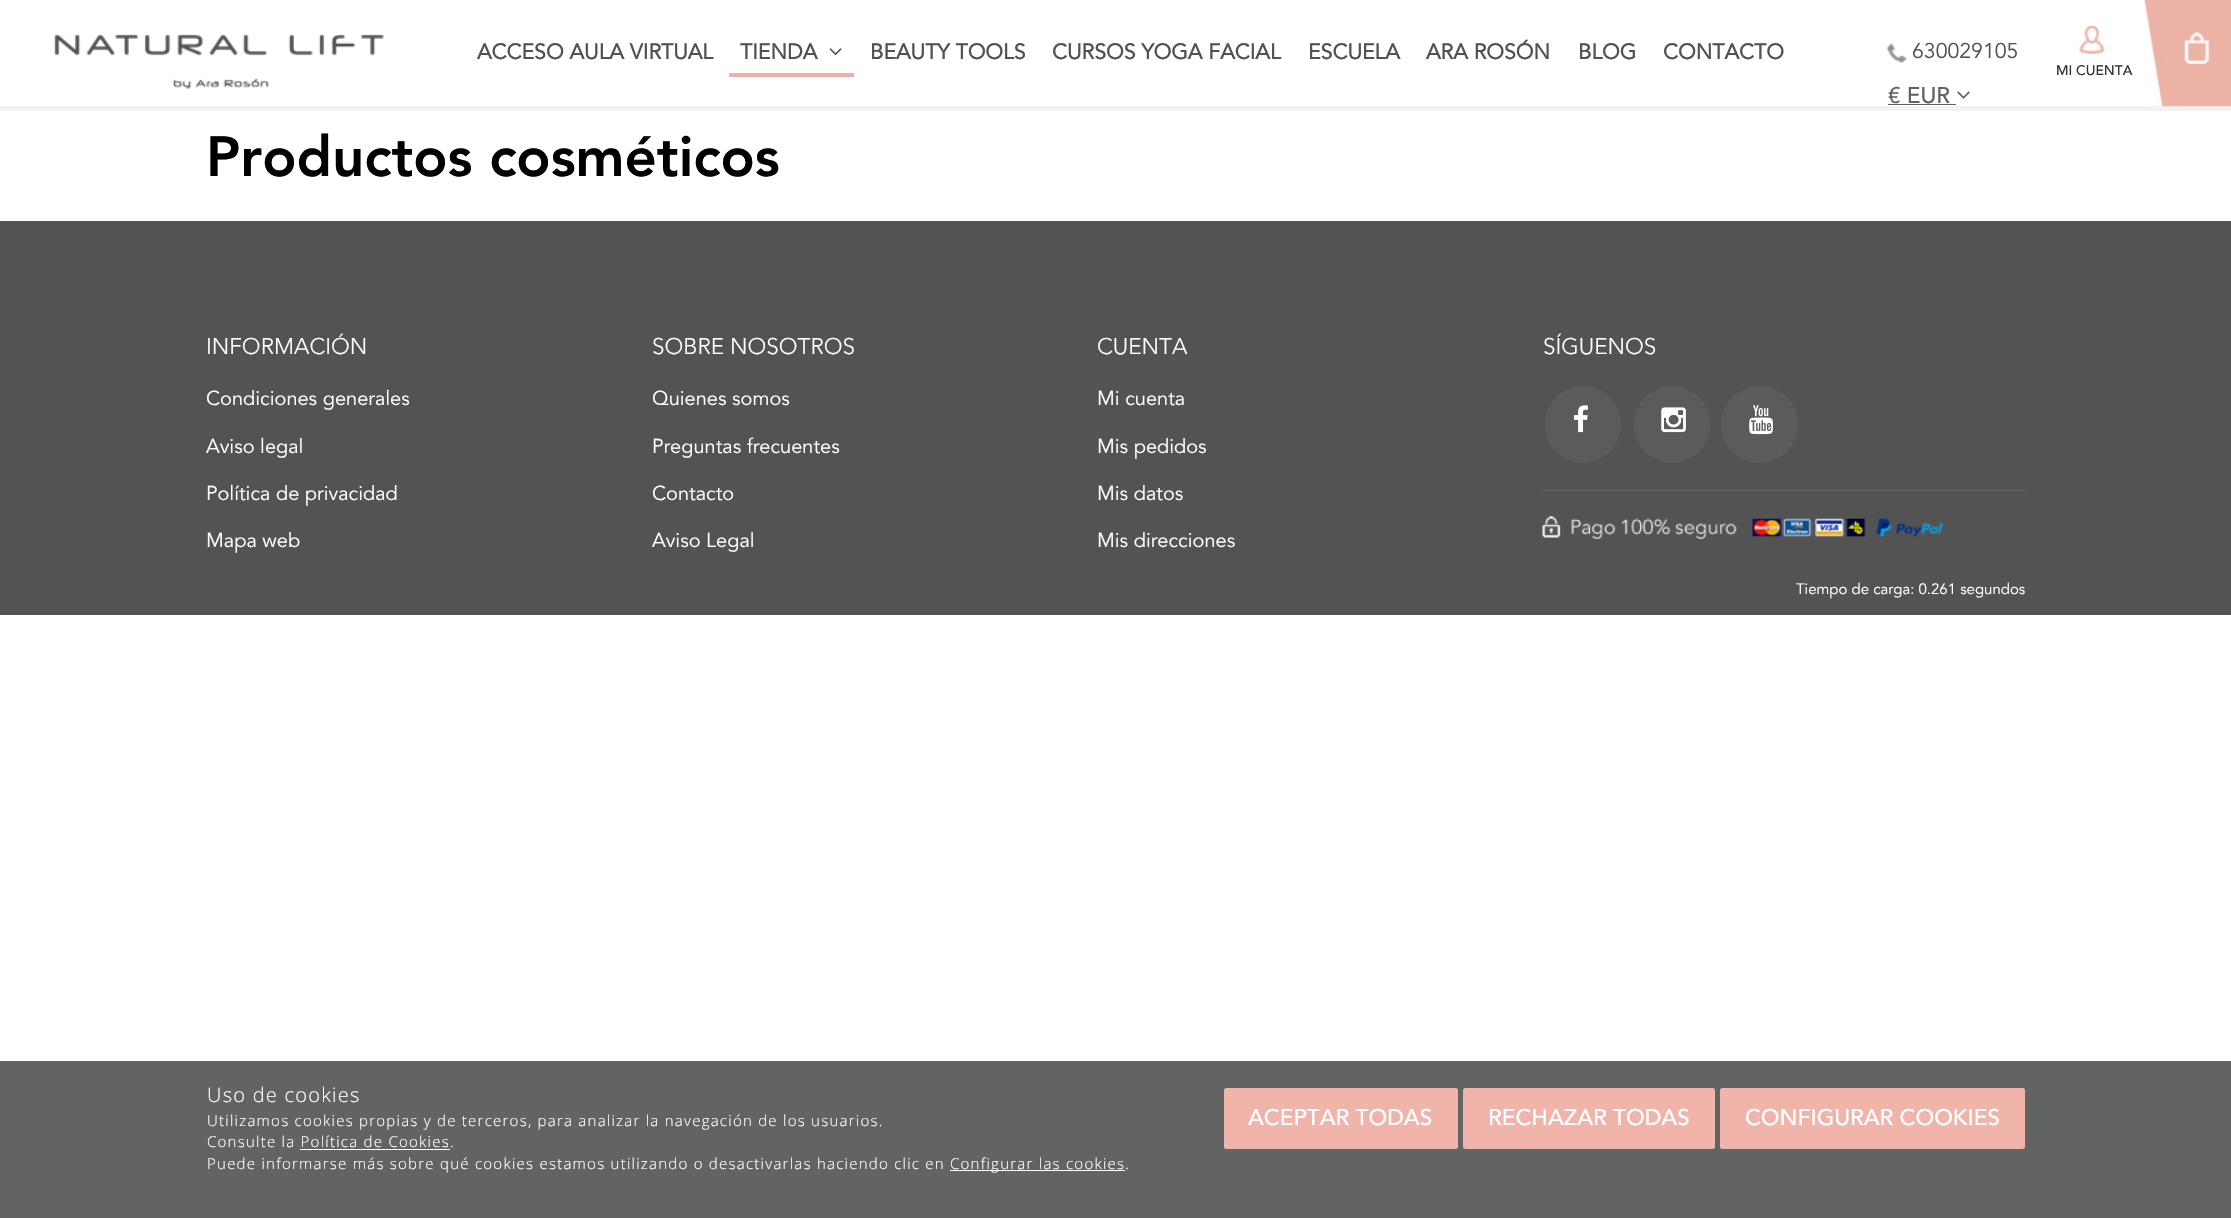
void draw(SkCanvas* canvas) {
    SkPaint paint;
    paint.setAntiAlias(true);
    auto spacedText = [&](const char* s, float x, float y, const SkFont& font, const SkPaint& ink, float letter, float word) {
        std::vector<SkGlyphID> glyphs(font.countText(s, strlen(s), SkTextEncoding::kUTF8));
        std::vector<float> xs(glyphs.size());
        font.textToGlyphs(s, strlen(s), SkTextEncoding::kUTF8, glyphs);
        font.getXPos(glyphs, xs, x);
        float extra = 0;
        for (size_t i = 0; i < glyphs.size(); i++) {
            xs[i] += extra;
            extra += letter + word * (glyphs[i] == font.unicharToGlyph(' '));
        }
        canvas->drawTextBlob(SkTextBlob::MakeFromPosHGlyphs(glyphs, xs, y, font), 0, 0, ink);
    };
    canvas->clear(0xFFFFFFFF);
    paint.setColor(0xFFF2F2F2);
    canvas->drawRect(SkRect::MakeXYWH(0, 106, 2231, 5), paint);
    canvas->drawImageRect(SkImages::DeferredFromEncodedData(SkData::MakeFromFileName("img1.png")), SkRect::MakeXYWH(53, 34, 331, 55), SkSamplingOptions());
    SkFont font1(fontMgr->matchFamilyStyle("Avenir", SkFontStyle::Bold()), 21.25f);
    font1.setSubpixel(true);
    paint.setColor(0xFF525252);
    canvas->drawString("ACCESO AULA VIRTUAL", 477, 59, font1, paint);
    paint.setColor(0xFFECB2A5);
    canvas->drawRect(SkRect::MakeXYWH(729, 73, 125, 4), paint);
    paint.setColor(0xFF525252);
    canvas->drawString("TIENDA", 740, 59, font1, paint);
    canvas->drawImageRect(SkImages::DeferredFromEncodedData(SkData::MakeFromFileName("img2.png")), SkRect::MakeXYWH(829, 48, 13, 8), SkSamplingOptions());
    canvas->drawString("BEAUTY TOOLS", 870, 59, font1, paint);
    canvas->drawString("CURSOS YOGA FACIAL", 1052, 59, font1, paint);
    canvas->drawString("ESCUELA", 1308, 59, font1, paint);
    canvas->drawString("ARA ROSÓN", 1426, 59, font1, paint);
    canvas->drawString("BLOG", 1578, 59, font1, paint);
    canvas->drawString("CONTACTO", 1663, 59, font1, paint);
    canvas->drawImageRect(SkImages::DeferredFromEncodedData(SkData::MakeFromFileName("img3.png")), SkRect::MakeXYWH(1887, 43, 20, 20), SkSamplingOptions());
    SkFont font2(fontMgr->matchFamilyStyle("Avenir", SkFontStyle::Normal()), 21.25f);
    font2.setSubpixel(true);
    canvas->drawString("630029105", 1912, 58, font2, paint);
    SkFont font3(fontMgr->matchFamilyStyle("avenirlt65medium", SkFontStyle(500, SkFontStyle::kNormal_Width, SkFontStyle::kUpright_Slant)), 22.5f);
    font3.setSubpixel(true);
    paint.setColor(0xFF616161);
    canvas->drawString("€ EUR", 1888, 103, font3, paint);
    canvas->drawRect(SkRect::MakeXYWH(1888, 104, 68, 1), paint);
    canvas->drawImageRect(SkImages::DeferredFromEncodedData(SkData::MakeFromFileName("img4.png")), SkRect::MakeXYWH(1957, 91, 13, 8), SkSamplingOptions());
    canvas->drawImageRect(SkImages::DeferredFromEncodedData(SkData::MakeFromFileName("img5.png")), SkRect::MakeXYWH(2079, 26, 26, 28), SkSamplingOptions());
    SkFont font4(fontMgr->matchFamilyStyle("avenirlt65medium", SkFontStyle(500, SkFontStyle::kNormal_Width, SkFontStyle::kUpright_Slant)), 13.75f);
    font4.setSubpixel(true);
    paint.setColor(0xFF31313F);
    canvas->drawString("MI CUENTA", 2056, 75, font4, paint);
    canvas->drawImageRect(SkImages::DeferredFromEncodedData(SkData::MakeFromFileName("img6.png")), SkRect::MakeXYWH(2144, 0, 87, 107), SkSamplingOptions());
    canvas->drawImageRect(SkImages::DeferredFromEncodedData(SkData::MakeFromFileName("img7.png")), SkRect::MakeXYWH(2184, 32, 26, 32), SkSamplingOptions());
    SkFont font5(fontMgr->matchFamilyStyle("Avenir", SkFontStyle(900, SkFontStyle::kNormal_Width, SkFontStyle::kUpright_Slant)), 56.25f);
    font5.setSubpixel(true);
    paint.setColor(0xFF000000);
    canvas->drawString("Productos cosméticos", 206, 176, font5, paint);
    paint.setColor(0xFF535353);
    canvas->drawRect(SkRect::MakeXYWH(0, 221, 2231, 394), paint);
    SkFont font6(fontMgr->matchFamilyStyle("Avenir", SkFontStyle(300, SkFontStyle::kNormal_Width, SkFontStyle::kUpright_Slant)), 22.5f);
    font6.setSubpixel(true);
    paint.setColor(0xFFFFFFFF);
    canvas->drawString("INFORMACIÓN", 206, 354, font6, paint);
    SkFont font7(fontMgr->matchFamilyStyle("Avenir", SkFontStyle::Normal()), 20);
    font7.setSubpixel(true);
    canvas->drawString("Condiciones generales", 206, 405, font7, paint);
    canvas->drawString("Aviso legal", 206, 453, font7, paint);
    canvas->drawString("Política de privacidad", 206, 500, font7, paint);
    canvas->drawString("Mapa web", 206, 547, font7, paint);
    canvas->drawString("SOBRE NOSOTROS", 652, 354, font6, paint);
    canvas->drawString("Quienes somos", 652, 405, font7, paint);
    canvas->drawString("Preguntas frecuentes", 652, 453, font7, paint);
    canvas->drawString("Contacto", 652, 500, font7, paint);
    canvas->drawString("Aviso Legal", 652, 547, font7, paint);
    canvas->drawString("CUENTA", 1097, 354, font6, paint);
    canvas->drawString("Mi cuenta", 1097, 405, font7, paint);
    canvas->drawString("Mis pedidos", 1097, 453, font7, paint);
    canvas->drawString("Mis datos", 1097, 500, font7, paint);
    canvas->drawString("Mis direcciones", 1097, 547, font7, paint);
    canvas->drawString("SÍGUENOS", 1543, 354, font6, paint);
    paint.setColor(0xFF5B5B5B);
    canvas->drawRoundRect(SkRect::MakeXYWH(1545, 386, 76, 77), 38, 38, paint);
    canvas->drawImageRect(SkImages::DeferredFromEncodedData(SkData::MakeFromFileName("img8.png")), SkRect::MakeXYWH(1574, 405, 14, 28), SkSamplingOptions());
    canvas->drawRoundRect(SkRect::MakeXYWH(1634, 386, 76, 77), 38, 38, paint);
    canvas->drawImageRect(SkImages::DeferredFromEncodedData(SkData::MakeFromFileName("img9.png")), SkRect::MakeXYWH(1661, 407, 25, 26), SkSamplingOptions());
    canvas->drawCircle(1759.5f, 424.5f, 38.5f, paint);
    canvas->drawImageRect(SkImages::DeferredFromEncodedData(SkData::MakeFromFileName("img10.png")), SkRect::MakeXYWH(1749, 405, 24, 30), SkSamplingOptions());
    paint.setColor(0xFF656565);
    canvas->drawRect(SkRect::MakeXYWH(1543, 490, 482, 1), paint);
    canvas->drawImageRect(SkImages::DeferredFromEncodedData(SkData::MakeFromFileName("img11.png")), SkRect::MakeXYWH(1542, 516, 401, 23), SkSamplingOptions());
    SkFont font8(fontMgr->matchFamilyStyle("Avenir", SkFontStyle::Normal()), 15);
    font8.setSubpixel(true);
    paint.setColor(0xFFFFFFFF);
    canvas->drawString("Tiempo de carga: 0.261 segundos", 1796, 594, font8, paint);
    paint.setColor(0xFF626363);
    canvas->drawRect(SkRect::MakeXYWH(0, 1061, 2231, 157), paint);
    SkFont font9(fontMgr->matchFamilyStyle("Open Sans", SkFontStyle(300, SkFontStyle::kNormal_Width, SkFontStyle::kUpright_Slant)), 20);
    font9.setSubpixel(true);
    paint.setColor(0xFFFFFFFF);
    spacedText("Uso de cookies", 207, 1102, font9, paint, 1.25f, 0);
    SkFont font10(fontMgr->matchFamilyStyle("Open Sans", SkFontStyle(300, SkFontStyle::kNormal_Width, SkFontStyle::kUpright_Slant)), 15);
    font10.setSubpixel(true);
    spacedText("Utilizamos cookies propias y de terceros, para analizar la navegación de los usuarios.", 207, 1126, font10, paint, 1.25f, 0);
    spacedText("Consulte la Política de Cookies.", 207, 1147, font10, paint, 1.25f, 0);
    canvas->drawRect(SkRect::MakeXYWH(300, 1149, 150, 1), paint);
    spacedText("Puede informarse más sobre qué cookies estamos utilizando o desactivarlas haciendo clic en", 207, 1169, font10, paint, 1.25f, 0);
    canvas->drawRect(SkRect::MakeXYWH(950, 1170, 175, 1), paint);
    spacedText("Configurar las cookies.", 950, 1169, font10, paint, 1.25f, 0);
    paint.setColor(0xFFF0B4AA);
    canvas->drawRoundRect(SkRect::MakeXYWH(1224, 1088, 234, 61), 2.5f, 2.5f, paint);
    paint.setColor(0xFFFFFFFF);
    canvas->drawString("ACEPTAR TODAS", 1248, 1125, font3, paint);
    paint.setColor(0xFFF0B4AA);
    canvas->drawRoundRect(SkRect::MakeXYWH(1463, 1088, 252, 61), 2.5f, 2.5f, paint);
    paint.setColor(0xFFFFFFFF);
    canvas->drawString("RECHAZAR TODAS", 1488, 1125, font3, paint);
    paint.setColor(0xFFF0B4AA);
    canvas->drawRoundRect(SkRect::MakeXYWH(1720, 1088, 305, 61), 2.5f, 2.5f, paint);
    paint.setColor(0xFFFFFFFF);
    canvas->drawString("CONFIGURAR COOKIES", 1745, 1125, font3, paint);
}
